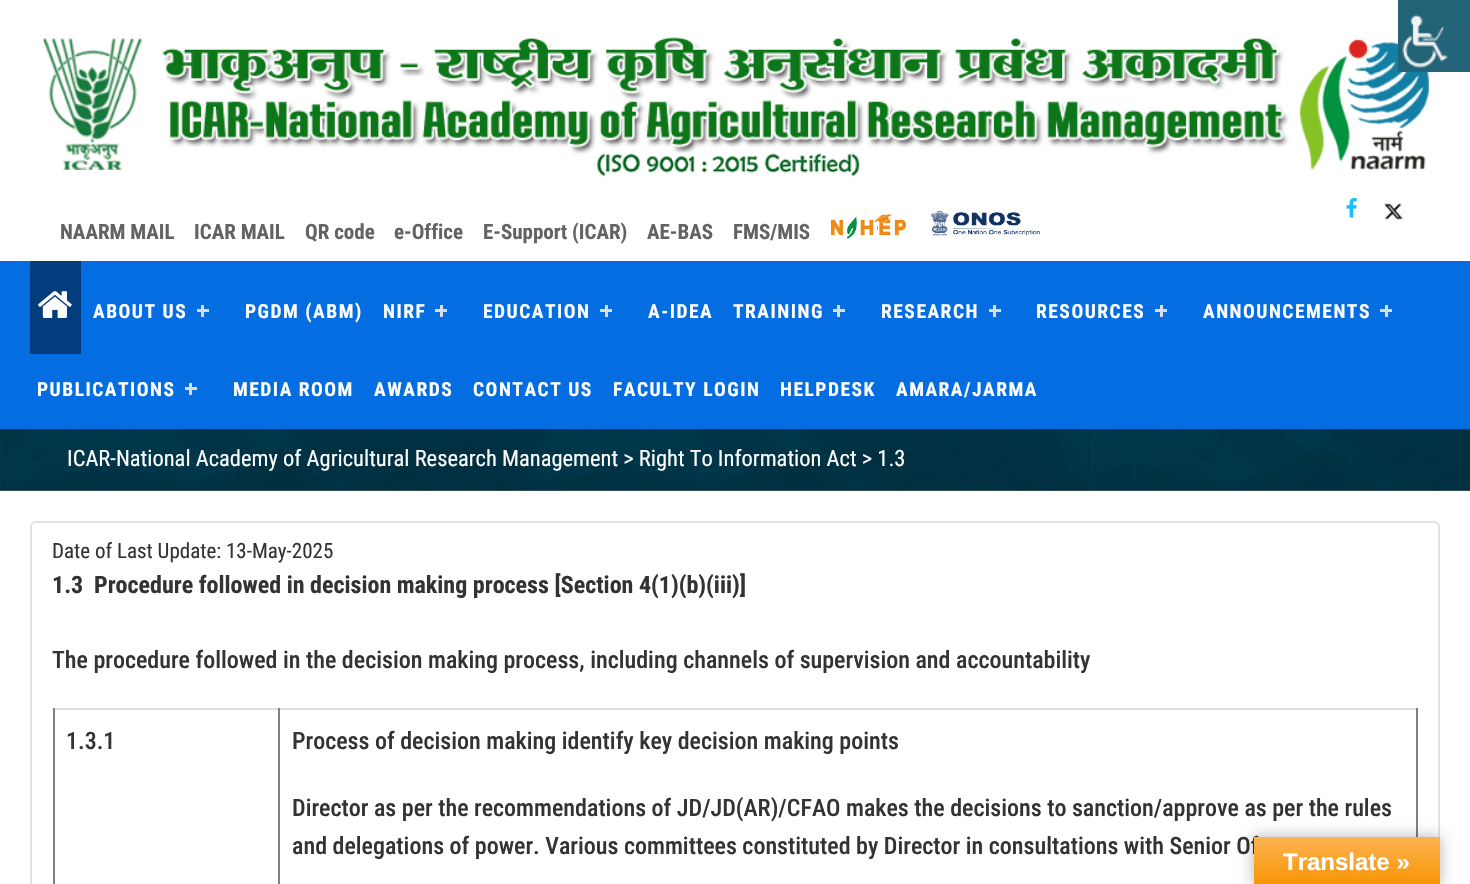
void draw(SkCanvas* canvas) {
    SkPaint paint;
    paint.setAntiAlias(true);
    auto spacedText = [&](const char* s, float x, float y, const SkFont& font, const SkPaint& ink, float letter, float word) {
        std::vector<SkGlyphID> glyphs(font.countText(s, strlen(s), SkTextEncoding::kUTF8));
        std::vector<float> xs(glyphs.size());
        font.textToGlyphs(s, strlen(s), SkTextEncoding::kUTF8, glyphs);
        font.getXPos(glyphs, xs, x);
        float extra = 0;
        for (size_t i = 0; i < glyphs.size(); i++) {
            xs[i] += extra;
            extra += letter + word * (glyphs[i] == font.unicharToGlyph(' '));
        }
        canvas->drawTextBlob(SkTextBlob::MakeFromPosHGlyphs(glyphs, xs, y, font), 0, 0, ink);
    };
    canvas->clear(0xFFFFFFFF);
    paint.setColor(0xFF666666);
    canvas->drawRect(SkRect::MakeXYWH(0, 490, 1470, 1), paint);
    canvas->drawImageRect(SkImages::DeferredFromEncodedData(SkData::MakeFromFileName("img2.png")), SkRect::MakeXYWH(43, 37, 1386, 140), SkSamplingOptions());
    canvas->drawImageRect(SkImages::DeferredFromEncodedData(SkData::MakeFromFileName("img1.png")), SkRect::MakeXYWH(1398, 0, 72, 72), SkSamplingOptions());
    canvas->drawImageRect(SkImages::DeferredFromEncodedData(SkData::MakeFromFileName("img3.png")), SkRect::MakeXYWH(1346, 198, 11, 20), SkSamplingOptions());
    canvas->drawImageRect(SkImages::DeferredFromEncodedData(SkData::MakeFromFileName("img4.png")), SkRect::MakeXYWH(1384, 203, 23, 17), SkSamplingOptions());
    SkFont font1(fontMgr->matchFamilyStyle("Roboto Condensed", SkFontStyle::Bold()), 21);
    font1.setSubpixel(true);
    paint.setColor(0xFF636363);
    canvas->drawString("NAARM MAIL", 60, 239, font1, paint);
    canvas->drawString("ICAR MAIL", 194, 239, font1, paint);
    canvas->drawString("QR code", 305, 239, font1, paint);
    canvas->drawString("e-Office", 394, 239, font1, paint);
    canvas->drawString("E-Support (ICAR)", 483, 239, font1, paint);
    canvas->drawString("AE-BAS", 647, 239, font1, paint);
    canvas->drawString("FMS/MIS", 733, 239, font1, paint);
    canvas->drawImageRect(SkImages::DeferredFromEncodedData(SkData::MakeFromFileName("img5.png")), SkRect::MakeXYWH(831, 214, 75, 25), SkSamplingOptions());
    canvas->drawImageRect(SkImages::DeferredFromEncodedData(SkData::MakeFromFileName("img6.png")), SkRect::MakeXYWH(930, 211, 111, 25), SkSamplingOptions());
    paint.setColor(0xFF046DE1);
    canvas->drawRect(SkRect::MakeXYWH(0, 261, 1470, 168), paint);
    paint.setColor(0xFF043D7D);
    canvas->drawRect(SkRect::MakeXYWH(30, 261, 51, 93), paint);
    canvas->drawImageRect(SkImages::DeferredFromEncodedData(SkData::MakeFromFileName("img7.png")), SkRect::MakeXYWH(38, 291, 34, 27), SkSamplingOptions());
    SkFont font2(fontMgr->matchFamilyStyle("Roboto Condensed", SkFontStyle::Bold()), 19.5f);
    font2.setSubpixel(true);
    paint.setColor(0xFFFFFFFF);
    spacedText("ABOUT US", 93, 318, font2, paint, 1.5f, 0);
    paint.setColor(0xFFDDDDDD);
    canvas->drawRect(SkRect::MakeXYWH(201, 305, 3, 12), paint);
    canvas->drawRect(SkRect::MakeXYWH(197, 309, 12, 3), paint);
    paint.setColor(0xFFFFFFFF);
    spacedText("PGDM (ABM)", 245, 318, font2, paint, 1.5f, 0);
    spacedText("NIRF", 383, 318, font2, paint, 1.5f, 0);
    paint.setColor(0xFFDDDDDD);
    canvas->drawRect(SkRect::MakeXYWH(440, 305, 3, 12), paint);
    canvas->drawRect(SkRect::MakeXYWH(435, 309, 12, 3), paint);
    paint.setColor(0xFFFFFFFF);
    spacedText("EDUCATION", 483, 318, font2, paint, 1.5f, 0);
    paint.setColor(0xFFDDDDDD);
    canvas->drawRect(SkRect::MakeXYWH(605, 305, 3, 12), paint);
    canvas->drawRect(SkRect::MakeXYWH(600, 309, 12, 3), paint);
    paint.setColor(0xFFFFFFFF);
    spacedText("A-IDEA", 648, 318, font2, paint, 1.5f, 0);
    spacedText("TRAINING", 733, 318, font2, paint, 1.5f, 0);
    paint.setColor(0xFFDDDDDD);
    canvas->drawRect(SkRect::MakeXYWH(837, 305, 3, 12), paint);
    canvas->drawRect(SkRect::MakeXYWH(833, 309, 12, 3), paint);
    paint.setColor(0xFFFFFFFF);
    spacedText("RESEARCH", 881, 318, font2, paint, 1.5f, 0);
    paint.setColor(0xFFDDDDDD);
    canvas->drawRect(SkRect::MakeXYWH(993, 305, 3, 12), paint);
    canvas->drawRect(SkRect::MakeXYWH(989, 309, 12, 3), paint);
    paint.setColor(0xFFFFFFFF);
    spacedText("RESOURCES", 1036, 318, font2, paint, 1.5f, 0);
    paint.setColor(0xFFDDDDDD);
    canvas->drawRect(SkRect::MakeXYWH(1160, 305, 3, 12), paint);
    canvas->drawRect(SkRect::MakeXYWH(1155, 309, 12, 3), paint);
    paint.setColor(0xFFFFFFFF);
    spacedText("ANNOUNCEMENTS", 1203, 318, font2, paint, 1.5f, 0);
    paint.setColor(0xFFDDDDDD);
    canvas->drawRect(SkRect::MakeXYWH(1385, 305, 3, 12), paint);
    canvas->drawRect(SkRect::MakeXYWH(1380, 309, 12, 3), paint);
    paint.setColor(0xFFFFFFFF);
    spacedText("PUBLICATIONS", 37, 396, font2, paint, 1.5f, 0);
    paint.setColor(0xFFDDDDDD);
    canvas->drawRect(SkRect::MakeXYWH(189, 383, 3, 12), paint);
    canvas->drawRect(SkRect::MakeXYWH(185, 387, 12, 3), paint);
    paint.setColor(0xFFFFFFFF);
    spacedText("MEDIA ROOM", 233, 396, font2, paint, 1.5f, 0);
    spacedText("AWARDS", 374, 396, font2, paint, 1.5f, 0);
    spacedText("CONTACT US", 473, 396, font2, paint, 1.5f, 0);
    spacedText("FACULTY LOGIN", 613, 396, font2, paint, 1.5f, 0);
    spacedText("HELPDESK", 780, 396, font2, paint, 1.5f, 0);
    spacedText("AMARA/JARMA", 896, 396, font2, paint, 1.5f, 0);
    canvas->drawImageRect(SkImages::DeferredFromEncodedData(SkData::MakeFromFileName("img8.png")), SkRect::MakeXYWH(0, 429, 1470, 62), SkSamplingOptions());
    SkFont font3(fontMgr->matchFamilyStyle("Roboto Condensed", SkFontStyle::Normal()), 22.5f);
    font3.setSubpixel(true);
    canvas->drawString("ICAR-National Academy of Agricultural Research Management > Right To Information Act > 1.3", 67, 466, font3, paint);
    paint.setStyle(SkPaint::kStroke_Style);
    paint.setStrokeWidth(2);
    paint.setColor(0xFFE1E1E8);
    canvas->drawRoundRect(SkRect::MakeXYWH(31, 522, 1408, 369), 5, 5, paint);
    SkFont font4(fontMgr->matchFamilyStyle("Roboto Condensed", SkFontStyle::Normal()), 21);
    font4.setSubpixel(true);
    paint.setStyle(SkPaint::kFill_Style);
    paint.setColor(0xFF333333);
    canvas->drawString("Date of Last Update: 13-May-2025", 52, 558, font4, paint);
    SkFont font5(fontMgr->matchFamilyStyle("Roboto Condensed", SkFontStyle::Bold()), 24);
    font5.setSubpixel(true);
    canvas->drawString("1.3", 52, 593, font5, paint);
    canvas->drawString("Procedure followed in decision making process [Section 4(1)(b)(iii)]", 94, 593, font5, paint);
    SkFont font6(fontMgr->matchFamilyStyle("Roboto Condensed", SkFontStyle(500, SkFontStyle::kNormal_Width, SkFontStyle::kUpright_Slant)), 24);
    font6.setSubpixel(true);
    canvas->drawString("The procedure followed in the decision making process, including channels of supervision and accountability", 52, 668, font6, paint);
    paint.setColor(0xFFDDDDDD);
    canvas->drawRect(SkRect::MakeXYWH(53, 708, 1365, 2), paint);
    paint.setColor(0xFF808080);
    canvas->drawRect(SkRect::MakeXYWH(278, 708, 2, 176), paint);
    canvas->drawRect(SkRect::MakeXYWH(53, 708, 2, 176), paint);
    paint.setColor(0xFF333333);
    canvas->drawString("1.3.1", 66, 749, font6, paint);
    paint.setColor(0xFF808080);
    canvas->drawRect(SkRect::MakeXYWH(1416, 708, 2, 129), paint);
    paint.setColor(0xFF333333);
    canvas->drawString("Process of decision making identify key decision making points", 292, 749, font6, paint);
    canvas->drawString("Director as per the recommendations of JD/JD(AR)/CFAO makes the decisions to sanction/approve as per the rules", 292, 816, font6, paint);
    canvas->drawString("and delegations of power. Various committees constituted by Director in consultations with Senior Of", 292, 854, font6, paint);
    paint.setColor(0x4D000000);
    paint.setMaskFilter(SkMaskFilter::MakeBlur(kNormal_SkBlurStyle, 7));
    canvas->drawRect(SkRect::MakeXYWH(1254, 837, 186, 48), paint);
    paint.setMaskFilter(nullptr);
    {
        const SkColor colors[] = {0xFFFBB450, 0xFFF89406};
        const float stops[] = {0, 1};
        const SkPoint ends[] = {{1347, 837}, {1347, 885}};
        paint.setShader(SkGradientShader::MakeLinear(ends, colors, stops, 2, SkTileMode::kClamp));
        paint.setAlpha(255);
    }
    canvas->drawRect(SkRect::MakeXYWH(1254, 837, 186, 47), paint);
    SkFont font7(fontMgr->matchFamilyStyle("Liberation Sans", SkFontStyle::Bold()), 24);
    font7.setSubpixel(true);
    paint.setShader(nullptr);
    paint.setColor(0xFFFFFFFF);
    canvas->drawString("Translate »", 1283, 870, font7, paint);
}
